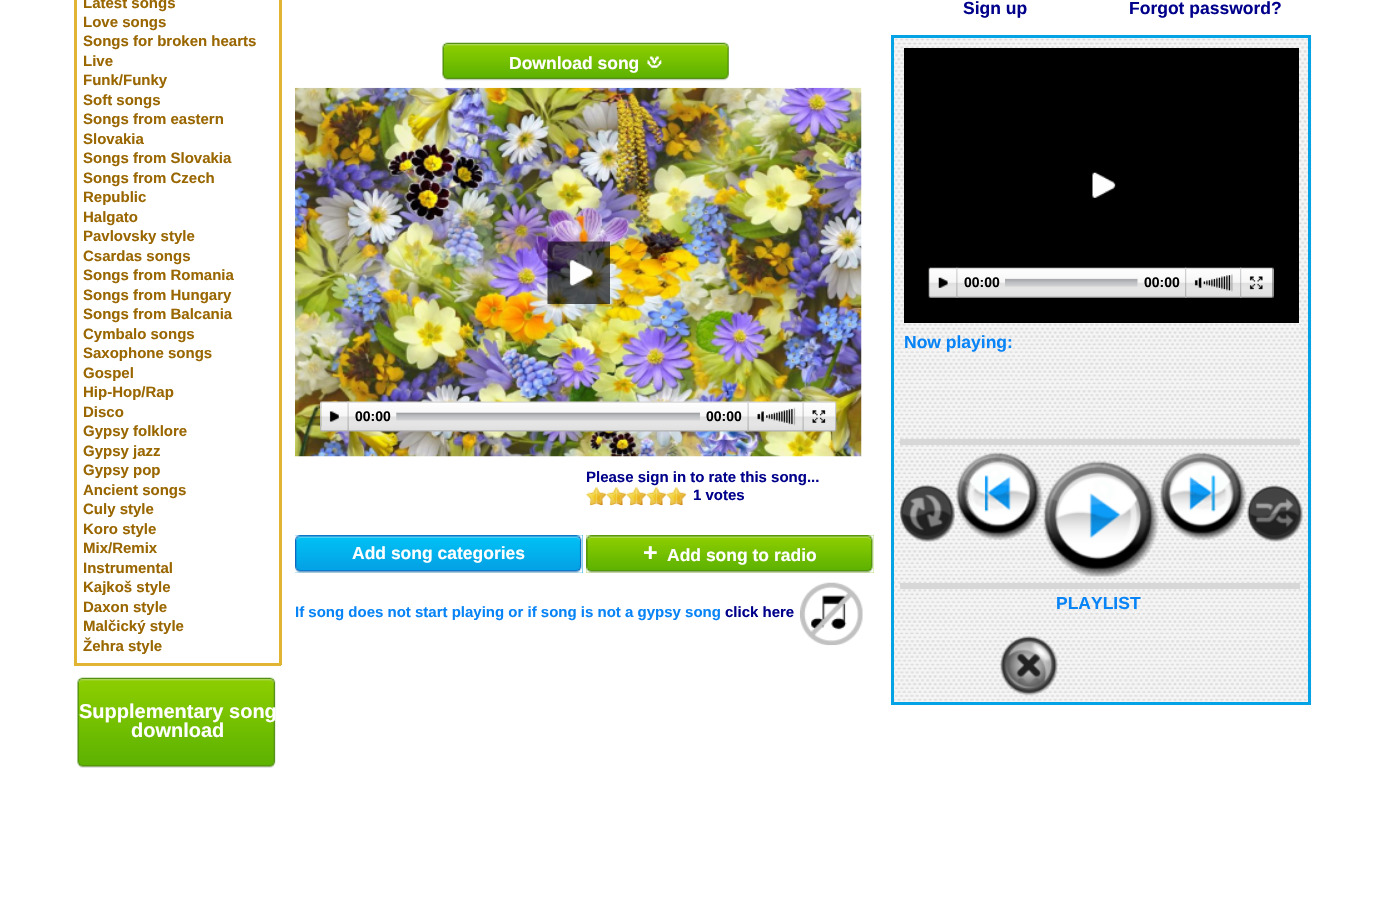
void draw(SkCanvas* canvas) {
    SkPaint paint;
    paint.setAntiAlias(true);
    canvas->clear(0xFFFFFFFF);
    paint.setColor(0xFFE2B434);
    canvas->drawRect(SkRect::MakeXYWH(279, 0, 3, 665), paint);
    canvas->drawRect(SkRect::MakeXYWH(74, 663, 207, 3), paint);
    canvas->drawRect(SkRect::MakeXYWH(74, 0, 3, 665), paint);
    SkFont font1(fontMgr->matchFamilyStyle("Liberation Sans", SkFontStyle::Bold()), 15);
    font1.setSubpixel(true);
    paint.setColor(0xFF996600);
    canvas->drawString("Latest songs", 83, 8, font1, paint);
    canvas->drawString("Love songs", 83, 27, font1, paint);
    canvas->drawString("Songs for broken hearts", 83, 46, font1, paint);
    canvas->drawString("Live", 83, 66, font1, paint);
    canvas->drawString("Funk/Funky", 83, 85, font1, paint);
    canvas->drawString("Soft songs", 83, 105, font1, paint);
    canvas->drawString("Songs from eastern", 83, 124, font1, paint);
    canvas->drawString("Slovakia", 83, 144, font1, paint);
    canvas->drawString("Songs from Slovakia", 83, 163, font1, paint);
    canvas->drawString("Songs from Czech", 83, 183, font1, paint);
    canvas->drawString("Republic", 83, 202, font1, paint);
    canvas->drawString("Halgato", 83, 222, font1, paint);
    canvas->drawString("Pavlovsky style", 83, 241, font1, paint);
    canvas->drawString("Csardas songs", 83, 261, font1, paint);
    canvas->drawString("Songs from Romania", 83, 280, font1, paint);
    canvas->drawString("Songs from Hungary", 83, 300, font1, paint);
    canvas->drawString("Songs from Balcania", 83, 319, font1, paint);
    canvas->drawString("Cymbalo songs", 83, 339, font1, paint);
    canvas->drawString("Saxophone songs", 83, 358, font1, paint);
    canvas->drawString("Gospel", 83, 378, font1, paint);
    canvas->drawString("Hip-Hop/Rap", 83, 397, font1, paint);
    canvas->drawString("Disco", 83, 417, font1, paint);
    canvas->drawString("Gypsy folklore", 83, 436, font1, paint);
    canvas->drawString("Gypsy jazz", 83, 456, font1, paint);
    canvas->drawString("Gypsy pop", 83, 475, font1, paint);
    canvas->drawString("Ancient songs", 83, 495, font1, paint);
    canvas->drawString("Culy style", 83, 514, font1, paint);
    canvas->drawString("Koro style", 83, 534, font1, paint);
    canvas->drawString("Mix/Remix", 83, 553, font1, paint);
    canvas->drawString("Instrumental", 83, 573, font1, paint);
    canvas->drawString("Kajkoš style", 83, 592, font1, paint);
    canvas->drawString("Daxon style", 83, 612, font1, paint);
    canvas->drawString("Malčický style", 83, 631, font1, paint);
    canvas->drawString("Žehra style", 83, 651, font1, paint);
    canvas->drawImageRect(SkImages::DeferredFromEncodedData(SkData::MakeFromFileName("img1.png")), SkRect::MakeXYWH(77, 677, 199, 91), SkSamplingOptions());
    SkFont font2(fontMgr->matchFamilyStyle("Liberation Sans", SkFontStyle::Bold()), 20);
    font2.setSubpixel(true);
    paint.setColor(0xFFFFFFFF);
    canvas->drawString("Supplementary song", 79, 718, font2, paint);
    canvas->drawString("download", 131, 737, font2, paint);
    canvas->drawImageRect(SkImages::DeferredFromEncodedData(SkData::MakeFromFileName("img2.png")), SkRect::MakeXYWH(442, 42, 288, 39), SkSamplingOptions());
    SkFont font3(fontMgr->matchFamilyStyle("Liberation Sans", SkFontStyle::Bold()), 17.5f);
    font3.setSubpixel(true);
    canvas->drawString("Download song", 509, 69, font3, paint);
    canvas->drawImageRect(SkImages::DeferredFromEncodedData(SkData::MakeFromFileName("img3.png")), SkRect::MakeXYWH(647, 56, 15, 12), SkSamplingOptions());
    canvas->drawImageRect(SkImages::DeferredFromEncodedData(SkData::MakeFromFileName("img4.png")), SkRect::MakeXYWH(295, 87, 567, 370), SkSamplingOptions());
    canvas->drawImageRect(SkImages::DeferredFromEncodedData(SkData::MakeFromFileName("img5.png")), SkRect::MakeXYWH(547, 241, 63, 63), SkSamplingOptions());
    canvas->drawImageRect(SkImages::DeferredFromEncodedData(SkData::MakeFromFileName("img6.png")), SkRect::MakeXYWH(569, 260, 24, 26), SkSamplingOptions());
    canvas->drawImageRect(SkImages::DeferredFromEncodedData(SkData::MakeFromFileName("img7.png")), SkRect::MakeXYWH(320, 401, 2, 31), SkSamplingOptions());
    canvas->drawImageRect(SkImages::DeferredFromEncodedData(SkData::MakeFromFileName("img8.png")), SkRect::MakeXYWH(321, 401, 514, 31), SkSamplingOptions());
    canvas->drawImageRect(SkImages::DeferredFromEncodedData(SkData::MakeFromFileName("img9.png")), SkRect::MakeXYWH(835, 401, 2, 31), SkSamplingOptions());
    canvas->drawImageRect(SkImages::DeferredFromEncodedData(SkData::MakeFromFileName("img10.png")), SkRect::MakeXYWH(329, 411, 10, 11), SkSamplingOptions());
    canvas->drawImageRect(SkImages::DeferredFromEncodedData(SkData::MakeFromFileName("img11.png")), SkRect::MakeXYWH(347, 401, 2, 31), SkSamplingOptions());
    SkFont font4(fontMgr->matchFamilyStyle("Liberation Sans", SkFontStyle::Bold()), 14);
    font4.setSubpixel(true);
    paint.setColor(0xFF000000);
    canvas->drawString("00:00", 355, 421, font4, paint);
    canvas->drawImageRect(SkImages::DeferredFromEncodedData(SkData::MakeFromFileName("img12.png")), SkRect::MakeXYWH(396, 412, 304, 9), SkSamplingOptions());
    canvas->drawString("00:00", 706, 421, font4, paint);
    canvas->drawImageRect(SkImages::DeferredFromEncodedData(SkData::MakeFromFileName("img13.png")), SkRect::MakeXYWH(747, 401, 2, 31), SkSamplingOptions());
    canvas->drawImageRect(SkImages::DeferredFromEncodedData(SkData::MakeFromFileName("img14.png")), SkRect::MakeXYWH(757, 411, 7, 11), SkSamplingOptions());
    canvas->drawImageRect(SkImages::DeferredFromEncodedData(SkData::MakeFromFileName("img15.png")), SkRect::MakeXYWH(766, 407, 30, 19), SkSamplingOptions());
    canvas->drawImageRect(SkImages::DeferredFromEncodedData(SkData::MakeFromFileName("img16.png")), SkRect::MakeXYWH(766, 408, 27, 17), SkSamplingOptions());
    canvas->drawImageRect(SkImages::DeferredFromEncodedData(SkData::MakeFromFileName("img17.png")), SkRect::MakeXYWH(802, 401, 2, 31), SkSamplingOptions());
    canvas->drawImageRect(SkImages::DeferredFromEncodedData(SkData::MakeFromFileName("img18.png")), SkRect::MakeXYWH(812, 410, 14, 13), SkSamplingOptions());
    paint.setColor(0xFF00008B);
    canvas->drawString("Please sign in to rate this song...", 586, 482, font1, paint);
    canvas->drawImageRect(SkImages::DeferredFromEncodedData(SkData::MakeFromFileName("img19.png")), SkRect::MakeXYWH(586, 486, 11, 20), SkSamplingOptions());
    canvas->drawImageRect(SkImages::DeferredFromEncodedData(SkData::MakeFromFileName("img20.png")), SkRect::MakeXYWH(596, 486, 11, 20), SkSamplingOptions());
    canvas->drawImageRect(SkImages::DeferredFromEncodedData(SkData::MakeFromFileName("img21.png")), SkRect::MakeXYWH(606, 486, 11, 20), SkSamplingOptions());
    canvas->drawImageRect(SkImages::DeferredFromEncodedData(SkData::MakeFromFileName("img22.png")), SkRect::MakeXYWH(616, 486, 11, 20), SkSamplingOptions());
    canvas->drawImageRect(SkImages::DeferredFromEncodedData(SkData::MakeFromFileName("img21.png")), SkRect::MakeXYWH(626, 486, 11, 20), SkSamplingOptions());
    canvas->drawImageRect(SkImages::DeferredFromEncodedData(SkData::MakeFromFileName("img22.png")), SkRect::MakeXYWH(636, 486, 11, 20), SkSamplingOptions());
    canvas->drawImageRect(SkImages::DeferredFromEncodedData(SkData::MakeFromFileName("img21.png")), SkRect::MakeXYWH(646, 486, 11, 20), SkSamplingOptions());
    canvas->drawImageRect(SkImages::DeferredFromEncodedData(SkData::MakeFromFileName("img22.png")), SkRect::MakeXYWH(656, 486, 11, 20), SkSamplingOptions());
    canvas->drawImageRect(SkImages::DeferredFromEncodedData(SkData::MakeFromFileName("img21.png")), SkRect::MakeXYWH(666, 486, 11, 20), SkSamplingOptions());
    canvas->drawImageRect(SkImages::DeferredFromEncodedData(SkData::MakeFromFileName("img22.png")), SkRect::MakeXYWH(676, 486, 11, 20), SkSamplingOptions());
    canvas->drawString("1 votes", 693, 500, font1, paint);
    paint.setColor(0xFF04A3E6);
    canvas->drawRect(SkRect::MakeXYWH(295, 535, 288, 38), paint);
    canvas->drawImageRect(SkImages::DeferredFromEncodedData(SkData::MakeFromFileName("img23.png")), SkRect::MakeXYWH(295, 535, 288, 38), SkSamplingOptions());
    paint.setColor(0xFFFFFFFF);
    canvas->drawString("Add song categories", 352, 559, font3, paint);
    paint.setColor(0xFF77C100);
    canvas->drawRect(SkRect::MakeXYWH(586, 535, 288, 38), paint);
    canvas->drawImageRect(SkImages::DeferredFromEncodedData(SkData::MakeFromFileName("img24.png")), SkRect::MakeXYWH(586, 535, 288, 38), SkSamplingOptions());
    SkFont font5(fontMgr->matchFamilyStyle("Liberation Sans", SkFontStyle::Bold()), 25);
    font5.setSubpixel(true);
    paint.setColor(0xFFFFFFFF);
    canvas->drawString("+", 643, 561, font5, paint);
    canvas->drawString("Add song to radio", 667, 561, font3, paint);
    paint.setColor(0xFF0884F6);
    canvas->drawString("If song does not start playing or if song is not a gypsy song", 295, 617, font1, paint);
    paint.setColor(0xFF00008B);
    canvas->drawString("click here", 725, 617, font1, paint);
    canvas->drawImageRect(SkImages::DeferredFromEncodedData(SkData::MakeFromFileName("img25.png")), SkRect::MakeXYWH(800, 582, 63, 64), SkSamplingOptions());
    canvas->drawString("Sign up", 963, 14, font3, paint);
    canvas->drawString("Forgot password?", 1129, 14, font3, paint);
    canvas->drawImageRect(SkImages::DeferredFromEncodedData(SkData::MakeFromFileName("img26.png")), SkRect::MakeXYWH(891, 35, 421, 671), SkSamplingOptions());
    paint.setStyle(SkPaint::kStroke_Style);
    paint.setStrokeWidth(3);
    paint.setColor(0xFF04A3E6);
    canvas->drawRect(SkRect::MakeXYWH(892.5f, 36.5f, 417, 667), paint);
    paint.setStyle(SkPaint::kFill_Style);
    paint.setColor(0xFF000000);
    canvas->drawRect(SkRect::MakeXYWH(904, 48, 395, 275), paint);
    canvas->drawImageRect(SkImages::DeferredFromEncodedData(SkData::MakeFromFileName("img27.png")), SkRect::MakeXYWH(1092, 172, 24, 26), SkSamplingOptions());
    canvas->drawImageRect(SkImages::DeferredFromEncodedData(SkData::MakeFromFileName("img28.png")), SkRect::MakeXYWH(928, 267, 2, 31), SkSamplingOptions());
    canvas->drawImageRect(SkImages::DeferredFromEncodedData(SkData::MakeFromFileName("img29.png")), SkRect::MakeXYWH(930, 267, 343, 31), SkSamplingOptions());
    canvas->drawImageRect(SkImages::DeferredFromEncodedData(SkData::MakeFromFileName("img30.png")), SkRect::MakeXYWH(938, 277, 10, 11), SkSamplingOptions());
    canvas->drawImageRect(SkImages::DeferredFromEncodedData(SkData::MakeFromFileName("img31.png")), SkRect::MakeXYWH(956, 267, 2, 31), SkSamplingOptions());
    canvas->drawString("00:00", 964, 287, font4, paint);
    canvas->drawImageRect(SkImages::DeferredFromEncodedData(SkData::MakeFromFileName("img32.png")), SkRect::MakeXYWH(1005, 278, 133, 9), SkSamplingOptions());
    canvas->drawString("00:00", 1144, 287, font4, paint);
    canvas->drawImageRect(SkImages::DeferredFromEncodedData(SkData::MakeFromFileName("img33.png")), SkRect::MakeXYWH(1185, 267, 2, 31), SkSamplingOptions());
    canvas->drawImageRect(SkImages::DeferredFromEncodedData(SkData::MakeFromFileName("img34.png")), SkRect::MakeXYWH(1194, 277, 8, 11), SkSamplingOptions());
    canvas->drawImageRect(SkImages::DeferredFromEncodedData(SkData::MakeFromFileName("img35.png")), SkRect::MakeXYWH(1203, 274, 30, 18), SkSamplingOptions());
    canvas->drawImageRect(SkImages::DeferredFromEncodedData(SkData::MakeFromFileName("img36.png")), SkRect::MakeXYWH(1203, 275, 28, 16), SkSamplingOptions());
    canvas->drawImageRect(SkImages::DeferredFromEncodedData(SkData::MakeFromFileName("img33.png")), SkRect::MakeXYWH(1240, 267, 2, 31), SkSamplingOptions());
    canvas->drawImageRect(SkImages::DeferredFromEncodedData(SkData::MakeFromFileName("img37.png")), SkRect::MakeXYWH(1249, 276, 14, 14), SkSamplingOptions());
    canvas->drawImageRect(SkImages::DeferredFromEncodedData(SkData::MakeFromFileName("img38.png")), SkRect::MakeXYWH(1272, 267, 2, 31), SkSamplingOptions());
    paint.setColor(0xFF0884F6);
    canvas->drawString("Now playing:", 904, 348, font3, paint);
    paint.setColor(0xFFD7D7D7);
    canvas->drawRect(SkRect::MakeXYWH(900, 439, 400, 6), paint);
    canvas->drawImageRect(SkImages::DeferredFromEncodedData(SkData::MakeFromFileName("img39.png")), SkRect::MakeXYWH(900, 485, 55, 57), SkSamplingOptions());
    canvas->drawImageRect(SkImages::DeferredFromEncodedData(SkData::MakeFromFileName("img40.png")), SkRect::MakeXYWH(956, 452, 87, 88), SkSamplingOptions());
    canvas->drawImageRect(SkImages::DeferredFromEncodedData(SkData::MakeFromFileName("img41.png")), SkRect::MakeXYWH(1043, 461, 116, 116), SkSamplingOptions());
    canvas->drawImageRect(SkImages::DeferredFromEncodedData(SkData::MakeFromFileName("img42.png")), SkRect::MakeXYWH(1160, 452, 87, 88), SkSamplingOptions());
    canvas->drawImageRect(SkImages::DeferredFromEncodedData(SkData::MakeFromFileName("img43.png")), SkRect::MakeXYWH(1247, 485, 56, 57), SkSamplingOptions());
    canvas->drawRect(SkRect::MakeXYWH(900, 583, 400, 6), paint);
    paint.setColor(0xFF0884F6);
    canvas->drawString("PLAYLIST", 1056, 609, font3, paint);
    canvas->drawImageRect(SkImages::DeferredFromEncodedData(SkData::MakeFromFileName("img44.png")), SkRect::MakeXYWH(1000, 636, 58, 60), SkSamplingOptions());
}
